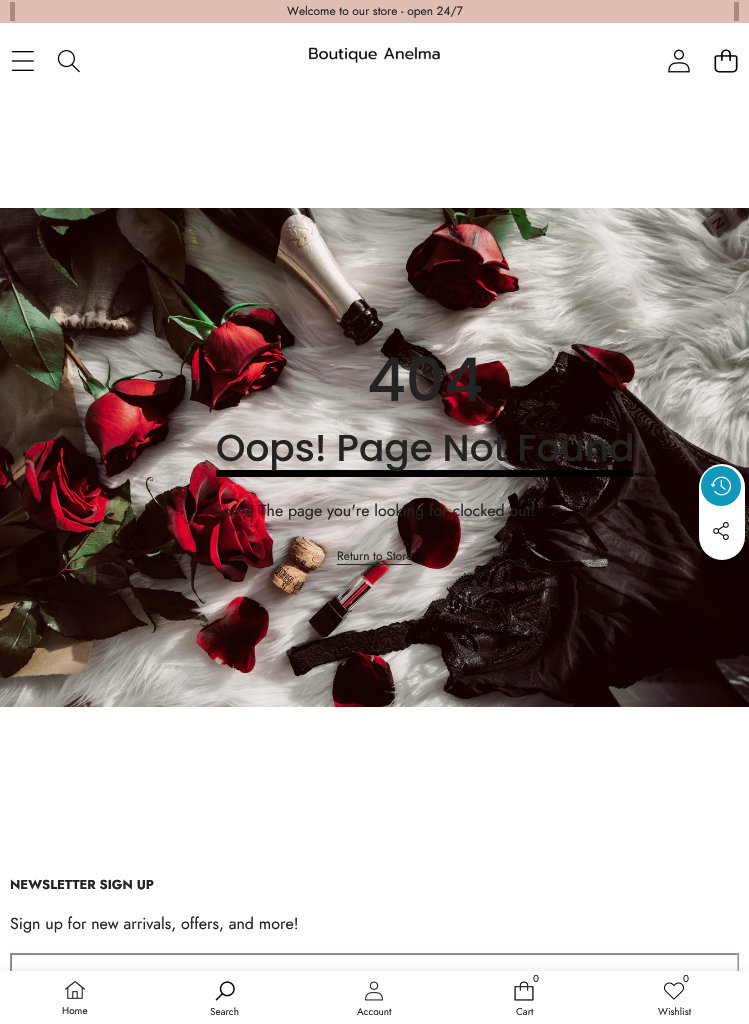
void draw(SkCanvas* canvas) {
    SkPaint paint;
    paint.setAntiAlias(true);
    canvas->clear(0xFFFFFFFF);
    paint.setColor(0xFFDFBEB4);
    canvas->drawRect(SkRect::MakeXYWH(0, 0, 749, 23), paint);
    paint.setColor(0xFFA98980);
    canvas->drawRect(SkRect::MakeXYWH(10, 2, 729, 19), paint);
    paint.setColor(0xFFDFBEB4);
    canvas->drawRect(SkRect::MakeXYWH(15, 2, 719, 19), paint);
    SkFont font1(fontMgr->matchFamilyStyle("Jost", SkFontStyle::Normal()), 12);
    font1.setSubpixel(true);
    paint.setColor(0xFF232323);
    canvas->drawString("Welcome to our store - open 24/7", 287, 15, font1, paint);
    canvas->drawImageRect(SkImages::DeferredFromEncodedData(SkData::MakeFromFileName("img1.png")), SkRect::MakeXYWH(11, 51, 23, 20), SkSamplingOptions());
    canvas->drawImageRect(SkImages::DeferredFromEncodedData(SkData::MakeFromFileName("img2.png")), SkRect::MakeXYWH(57, 50, 23, 23), SkSamplingOptions());
    canvas->drawImageRect(SkImages::DeferredFromEncodedData(SkData::MakeFromFileName("img3.png")), SkRect::MakeXYWH(308, 47, 133, 16), SkSamplingOptions());
    canvas->drawImageRect(SkImages::DeferredFromEncodedData(SkData::MakeFromFileName("img4.png")), SkRect::MakeXYWH(668, 49, 22, 24), SkSamplingOptions());
    canvas->drawImageRect(SkImages::DeferredFromEncodedData(SkData::MakeFromFileName("img5.png")), SkRect::MakeXYWH(714, 49, 24, 24), SkSamplingOptions());
    canvas->drawImageRect(SkImages::DeferredFromEncodedData(SkData::MakeFromFileName("img6.png")), SkRect::MakeXYWH(0, 208, 749, 499), SkSamplingOptions());
    SkFont font2(fontMgr->matchFamilyStyle("Poppins", SkFontStyle(500, SkFontStyle::kNormal_Width, SkFontStyle::kUpright_Slant)), 60);
    font2.setSubpixel(true);
    canvas->drawString("404", 367, 401, font2, paint);
    paint.setColor(0xFF000000);
    canvas->drawRect(SkRect::MakeXYWH(216, 470, 417, 7), paint);
    SkFont font3(fontMgr->matchFamilyStyle("Poppins", SkFontStyle(500, SkFontStyle::kNormal_Width, SkFontStyle::kUpright_Slant)), 37.5f);
    font3.setSubpixel(true);
    paint.setColor(0xFF232323);
    canvas->drawString("Oops! Page Not Found", 216, 461, font3, paint);
    SkFont font4(fontMgr->matchFamilyStyle("Jost", SkFontStyle::Normal()), 16);
    font4.setSubpixel(true);
    canvas->drawString("Sorry! The page you're looking for clocked out!", 214, 516, font4, paint);
    canvas->drawString("Return to Store", 337, 560, font1, paint);
    paint.setColor(0xFF252323);
    canvas->drawRect(SkRect::MakeXYWH(337, 564, 75, 1), paint);
    paint.setColor(0x1A000000);
    paint.setMaskFilter(SkMaskFilter::MakeBlur(kNormal_SkBlurStyle, 6));
    canvas->drawRoundRect(SkRect::MakeXYWH(701, 468, 46, 96), 23, 23, paint);
    paint.setMaskFilter(nullptr);
    paint.setColor(0xFFFFFFFF);
    canvas->drawRoundRect(SkRect::MakeXYWH(699, 464, 46, 96), 23, 23, paint);
    paint.setColor(0xFF1199BB);
    canvas->drawCircle(721, 486, 20, paint);
    canvas->drawImageRect(SkImages::DeferredFromEncodedData(SkData::MakeFromFileName("img7.png")), SkRect::MakeXYWH(711, 476, 20, 20), SkSamplingOptions());
    canvas->drawImageRect(SkImages::DeferredFromEncodedData(SkData::MakeFromFileName("img8.png")), SkRect::MakeXYWH(713, 522, 16, 18), SkSamplingOptions());
    SkFont font5(fontMgr->matchFamilyStyle("Jost", SkFontStyle::Bold()), 13);
    font5.setSubpixel(true);
    paint.setColor(0xFF232323);
    canvas->drawString("NEWSLETTER SIGN UP", 10, 889, font5, paint);
    canvas->drawString("Sign up for new arrivals, offers, and more!", 10, 929, font4, paint);
    paint.setStyle(SkPaint::kStroke_Style);
    paint.setStrokeWidth(1);
    paint.setColor(0xFFA98980);
    canvas->drawRect(SkRect::MakeXYWH(10.5f, 953.5f, 728, 61), paint);
    paint.setStyle(SkPaint::kFill_Style);
    paint.setColor(0xFF848484);
    canvas->drawRect(SkRect::MakeXYWH(11, 954, 727, 1), paint);
    paint.setColor(0xFFC6C6C6);
    canvas->drawRect(SkRect::MakeXYWH(737, 954, 1, 17), paint);
    paint.setColor(0xFF848484);
    canvas->drawRect(SkRect::MakeXYWH(11, 954, 1, 17), paint);
    paint.setColor(0x33808080);
    paint.setMaskFilter(SkMaskFilter::MakeBlur(kNormal_SkBlurStyle, 5.5f));
    canvas->drawRect(SkRect::MakeXYWH(0, 971, 749, 53), paint);
    paint.setMaskFilter(nullptr);
    paint.setColor(0xFFFFFFFF);
    canvas->drawRect(SkRect::MakeXYWH(0, 971, 749, 53), paint);
    canvas->drawImageRect(SkImages::DeferredFromEncodedData(SkData::MakeFromFileName("img9.png")), SkRect::MakeXYWH(65, 981, 20, 18), SkSamplingOptions());
    SkFont font6(fontMgr->matchFamilyStyle("Jost", SkFontStyle::Normal()), 10);
    font6.setSubpixel(true);
    paint.setColor(0xFF232323);
    canvas->drawString("Home", 62, 1014, font6, paint);
    canvas->drawImageRect(SkImages::DeferredFromEncodedData(SkData::MakeFromFileName("img10.png")), SkRect::MakeXYWH(215, 981, 20, 20), SkSamplingOptions());
    canvas->drawString("Search", 210, 1015, font6, paint);
    canvas->drawImageRect(SkImages::DeferredFromEncodedData(SkData::MakeFromFileName("img11.png")), SkRect::MakeXYWH(365, 981, 18, 20), SkSamplingOptions());
    canvas->drawString("Account", 357, 1015, font6, paint);
    canvas->drawImageRect(SkImages::DeferredFromEncodedData(SkData::MakeFromFileName("img12.png")), SkRect::MakeXYWH(514, 981, 20, 20), SkSamplingOptions());
    canvas->drawString("0", 533, 982, font6, paint);
    canvas->drawString("Cart", 516, 1015, font6, paint);
    canvas->drawImageRect(SkImages::DeferredFromEncodedData(SkData::MakeFromFileName("img13.png")), SkRect::MakeXYWH(664, 982, 20, 18), SkSamplingOptions());
    canvas->drawString("0", 683, 982, font6, paint);
    canvas->drawString("Wishlist", 658, 1015, font6, paint);
}
